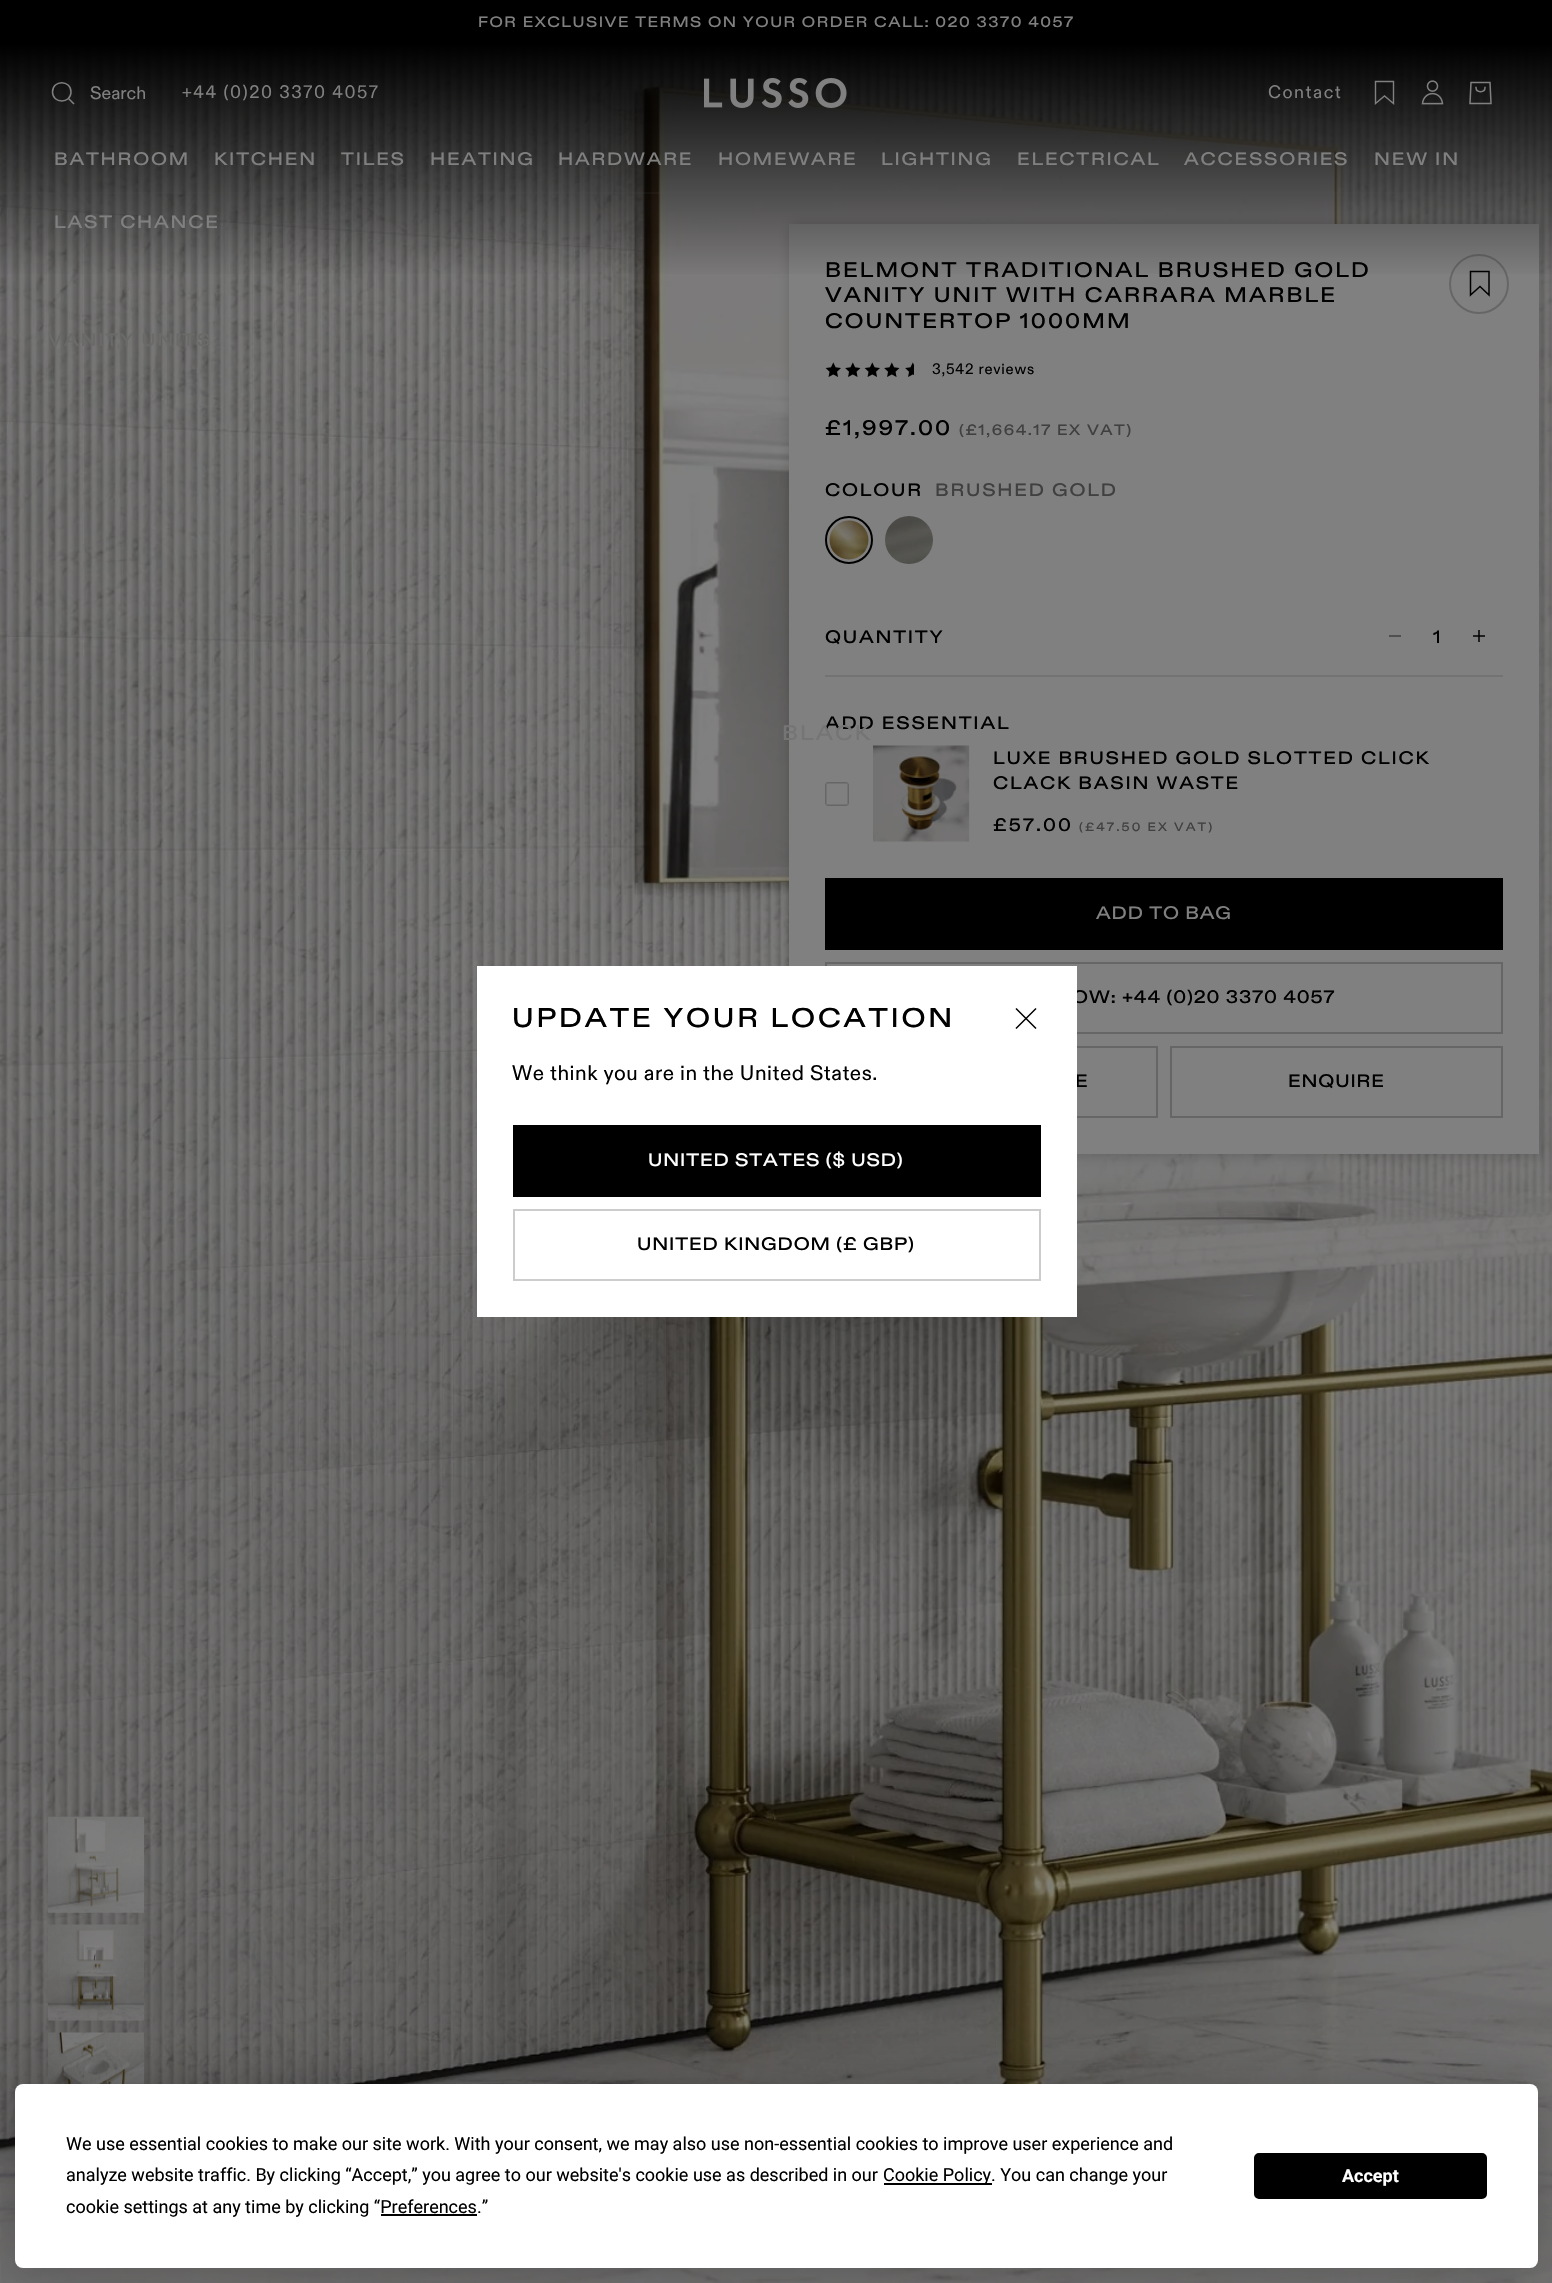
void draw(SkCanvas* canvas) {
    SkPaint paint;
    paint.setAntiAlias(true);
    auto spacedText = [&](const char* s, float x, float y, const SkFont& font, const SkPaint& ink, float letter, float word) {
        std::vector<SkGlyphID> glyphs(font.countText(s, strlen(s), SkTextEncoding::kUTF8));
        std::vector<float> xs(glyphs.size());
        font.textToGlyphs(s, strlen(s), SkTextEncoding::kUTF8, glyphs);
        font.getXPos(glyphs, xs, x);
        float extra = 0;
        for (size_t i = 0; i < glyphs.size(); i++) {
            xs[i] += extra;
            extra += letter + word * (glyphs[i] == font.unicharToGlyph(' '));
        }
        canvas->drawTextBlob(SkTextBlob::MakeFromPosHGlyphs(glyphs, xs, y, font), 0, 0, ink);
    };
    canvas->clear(0xFF808080);
    paint.setColor(0xFF000000);
    canvas->drawRect(SkRect::MakeXYWH(0, 0, 1552, 45), paint);
    SkFont font1(fontMgr->matchFamilyStyle("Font", SkFontStyle(500, SkFontStyle::kNormal_Width, SkFontStyle::kUpright_Slant)), 15);
    font1.setSubpixel(true);
    paint.setColor(0xFF808080);
    spacedText("FOR EXCLUSIVE TERMS ON YOUR ORDER CALL: 020 3370 4057", 478, 27, font1, paint, 1.5f, 0);
    canvas->drawImageRect(SkImages::DeferredFromEncodedData(SkData::MakeFromFileName("img3.png")), SkRect::MakeXYWH(0, 47, 1552, 2236), SkSamplingOptions());
    paint.setColor(0x1A808080);
    canvas->drawRect(SkRect::MakeXYWH(0, 192, 1519, 2), paint);
    paint.setColor(0x33000000);
    paint.setMaskFilter(SkMaskFilter::MakeBlur(kNormal_SkBlurStyle, 6));
    canvas->drawRect(SkRect::MakeXYWH(791, 225, 750, 930), paint);
    paint.setMaskFilter(nullptr);
    paint.setColor(0xFF808080);
    canvas->drawRect(SkRect::MakeXYWH(789, 224, 750, 930), paint);
    SkFont font2(fontMgr->matchFamilyStyle("Font", SkFontStyle(500, SkFontStyle::kNormal_Width, SkFontStyle::kUpright_Slant)), 21);
    font2.setSubpixel(true);
    paint.setColor(0xFF000000);
    spacedText("BELMONT TRADITIONAL BRUSHED GOLD", 825, 277, font2, paint, 2.1f, 0);
    paint.setStyle(SkPaint::kStroke_Style);
    paint.setStrokeWidth(2);
    paint.setColor(0xFF666666);
    canvas->drawCircle(1479, 284, 29, paint);
    paint.setStrokeWidth(1.5f);
    paint.setStrokeCap(SkPaint::kRound_Cap);
    paint.setColor(0xFF000000);
    canvas->drawPath(SkPathBuilder().moveTo(1489, 295).lineTo(1489, 271.5f).lineTo(1470.5f, 271.5f).lineTo(1470.5f, 295).lineTo(1480, 286.5f).close().detach(), paint);
    paint.setStyle(SkPaint::kFill_Style);
    {
        const SkColor colors[] = {0xFF000000, 0x00000000};
        const float stops[] = {0, 1};
        const SkPoint ends[] = {{776, 45}, {776, 279}};
        paint.setShader(SkGradientShader::MakeLinear(ends, colors, stops, 2, SkTileMode::kClamp));
        paint.setAlpha(255);
    }
    canvas->drawRect(SkRect::MakeXYWH(0, 45, 1552, 229), paint);
    paint.setStyle(SkPaint::kStroke_Style);
    paint.setStrokeCap(SkPaint::kSquare_Cap);
    paint.setShader(nullptr);
    paint.setColor(0xFF808080);
    canvas->drawPath(SkPathBuilder().moveTo(73.5f, 103.5f).lineTo(68.5f, 98.5f).moveTo(71, 92).cubicTo(71, 104, 52.5f, 104, 52.5f, 92).cubicTo(52.5f, 79.5f, 71, 79.5f, 71, 92).close().detach(), paint);
    SkFont font3(fontMgr->matchFamilyStyle("Font", SkFontStyle::Normal()), 18);
    font3.setSubpixel(true);
    paint.setStyle(SkPaint::kFill_Style);
    canvas->drawString("Search", 90, 99, font3, paint);
    spacedText("+44 (0)20 3370 4057", 182, 98, font3, paint, 1.5f, 0);
    canvas->drawImageRect(SkImages::DeferredFromEncodedData(SkData::MakeFromFileName("img1.png")), SkRect::MakeXYWH(704, 78, 143, 30), SkSamplingOptions());
    spacedText("Contact", 1268, 98, font3, paint, 1.5f, 0);
    paint.setStyle(SkPaint::kStroke_Style);
    paint.setStrokeWidth(1.4f);
    paint.setStrokeCap(SkPaint::kRound_Cap);
    canvas->drawPath(SkPathBuilder().moveTo(1393.5f, 103.5f).lineTo(1393.5f, 81.5f).lineTo(1375.5f, 81.5f).lineTo(1375.5f, 103.5f).lineTo(1384.5f, 96).close().detach(), paint);
    canvas->drawImageRect(SkImages::DeferredFromEncodedData(SkData::MakeFromFileName("img2.png")), SkRect::MakeXYWH(1421, 80, 23, 25), SkSamplingOptions());
    paint.setStrokeWidth(1.5f);
    paint.setStrokeCap(SkPaint::kSquare_Cap);
    canvas->drawPath(SkPathBuilder().moveTo(1485, 87.5f).cubicTo(1485, 93, 1476, 93, 1476, 87.5f).moveTo(1471, 82.5f).lineTo(1470, 103.5f).lineTo(1491, 103.5f).lineTo(1490, 82.5f).close().detach(), paint);
    SkFont font4(fontMgr->matchFamilyStyle("Font", SkFontStyle(500, SkFontStyle::kNormal_Width, SkFontStyle::kUpright_Slant)), 18);
    font4.setSubpixel(true);
    paint.setStyle(SkPaint::kFill_Style);
    spacedText("BATHROOM", 54, 165, font4, paint, 1.8f, 0);
    spacedText("KITCHEN", 214, 165, font4, paint, 1.8f, 0);
    spacedText("TILES", 341, 165, font4, paint, 1.8f, 0);
    spacedText("HEATING", 430, 165, font4, paint, 1.8f, 0);
    spacedText("HARDWARE", 558, 165, font4, paint, 1.8f, 0);
    spacedText("HOMEWARE", 718, 165, font4, paint, 1.8f, 0);
    spacedText("LIGHTING", 881, 165, font4, paint, 1.8f, 0);
    spacedText("ELECTRICAL", 1017, 165, font4, paint, 1.8f, 0);
    spacedText("ACCESSORIES", 1184, 165, font4, paint, 1.8f, 0);
    spacedText("NEW IN", 1374, 165, font4, paint, 1.8f, 0);
    spacedText("LAST CHANCE", 54, 228, font4, paint, 1.8f, 0);
    paint.setColor(0xFF6A6A69);
    spacedText("VANITY UNITS", 48, 346, font4, paint, 1.8f, 0);
    paint.setColor(0xFF000000);
    spacedText("ADD ESSENTIAL", 825, 729, font4, paint, 1.8f, 0);
    paint.setColor(0xFF757575);
    spacedText("BLACK", 782, 740, font2, paint, 2.1f, 0);
    canvas->drawImageRect(SkImages::DeferredFromEncodedData(SkData::MakeFromFileName("img4.png")), SkRect::MakeXYWH(48, 1816, 96, 97), SkSamplingOptions());
    paint.setColor(0x4D808080);
    canvas->drawRect(SkRect::MakeXYWH(48, 1817, 96, 96), paint);
    canvas->drawImageRect(SkImages::DeferredFromEncodedData(SkData::MakeFromFileName("img5.png")), SkRect::MakeXYWH(48, 1924, 96, 97), SkSamplingOptions());
    canvas->drawImageRect(SkImages::DeferredFromEncodedData(SkData::MakeFromFileName("img6.png")), SkRect::MakeXYWH(48, 2032, 96, 52), SkSamplingOptions());
    paint.setColor(0xFF000000);
    spacedText("VANITY UNIT WITH CARRARA MARBLE", 825, 302, font2, paint, 2.1f, 0);
    spacedText("COUNTERTOP 1000MM", 825, 328, font2, paint, 2.1f, 0);
    canvas->drawImageRect(SkImages::DeferredFromEncodedData(SkData::MakeFromFileName("img7.png")), SkRect::MakeXYWH(825, 362, 16, 15), SkSamplingOptions());
    canvas->drawImageRect(SkImages::DeferredFromEncodedData(SkData::MakeFromFileName("img8.png")), SkRect::MakeXYWH(845, 362, 16, 15), SkSamplingOptions());
    canvas->drawImageRect(SkImages::DeferredFromEncodedData(SkData::MakeFromFileName("img7.png")), SkRect::MakeXYWH(864, 362, 16, 15), SkSamplingOptions());
    canvas->drawImageRect(SkImages::DeferredFromEncodedData(SkData::MakeFromFileName("img8.png")), SkRect::MakeXYWH(884, 362, 16, 15), SkSamplingOptions());
    canvas->drawImageRect(SkImages::DeferredFromEncodedData(SkData::MakeFromFileName("img8.png")), SkRect::MakeXYWH(905, 362, 16, 15), SkSamplingOptions());
    canvas->drawImageRect(SkImages::DeferredFromEncodedData(SkData::MakeFromFileName("img9.png")), SkRect::MakeXYWH(914, 365, 7, 12), SkSamplingOptions());
    SkFont font5(fontMgr->matchFamilyStyle("Font", SkFontStyle::Normal()), 15);
    font5.setSubpixel(true);
    spacedText("3,542 reviews", 932, 374, font5, paint, 0.75f, 0);
    spacedText("£1,997.00", 825, 435, font2, paint, 2.1f, 0);
    paint.setColor(0xFF404040);
    spacedText("(£1,664.17 EX VAT)", 959, 435, font1, paint, 1.5f, 0);
    paint.setColor(0xFF000000);
    spacedText("COLOUR", 825, 496, font4, paint, 1.8f, 0);
    paint.setColor(0xFF404040);
    spacedText("BRUSHED GOLD", 935, 496, font4, paint, 1.8f, 0);
    canvas->drawImageRect(SkImages::DeferredFromEncodedData(SkData::MakeFromFileName("img10.png")), SkRect::MakeXYWH(829, 520, 40, 40), SkSamplingOptions());
    paint.setStyle(SkPaint::kStroke_Style);
    paint.setStrokeWidth(2);
    paint.setStrokeCap(SkPaint::kButt_Cap);
    paint.setColor(0xFF000000);
    canvas->drawCircle(849, 540, 23, paint);
    canvas->drawImageRect(SkImages::DeferredFromEncodedData(SkData::MakeFromFileName("img11.png")), SkRect::MakeXYWH(885, 516, 48, 48), SkSamplingOptions());
    paint.setStyle(SkPaint::kFill_Style);
    paint.setColor(0xFF737373);
    canvas->drawRect(SkRect::MakeXYWH(825, 675, 678, 2), paint);
    paint.setColor(0xFF000000);
    spacedText("QUANTITY", 825, 643, font4, paint, 1.8f, 0);
    paint.setColor(0xFF505050);
    canvas->drawRect(SkRect::MakeXYWH(1389, 635, 12, 2), paint);
    paint.setColor(0xFF000000);
    spacedText("1", 1433, 643, font4, paint, 1.8f, 0);
    canvas->drawImageRect(SkImages::DeferredFromEncodedData(SkData::MakeFromFileName("img12.png")), SkRect::MakeXYWH(1473, 630, 12, 12), SkSamplingOptions());
    paint.setColor(0xFF666666);
    canvas->drawPath(SkPathBuilder(SkPathFillType::kEvenOdd).moveTo(828, 782).cubicTo(826.5f, 782, 825, 783.5f, 825, 785).lineTo(825, 803).cubicTo(825, 804.5f, 826.5f, 806, 828, 806).lineTo(846, 806).cubicTo(847.5f, 806, 849, 804.5f, 849, 803).lineTo(849, 785).cubicTo(849, 783.5f, 847.5f, 782, 846, 782).close().moveTo(826.5f, 783.5f).lineTo(826.5f, 804.5f).lineTo(847.5f, 804.5f).lineTo(847.5f, 783.5f).close().detach(), paint);
    canvas->drawImageRect(SkImages::DeferredFromEncodedData(SkData::MakeFromFileName("img13.png")), SkRect::MakeXYWH(873, 745, 97, 97), SkSamplingOptions());
    paint.setColor(0xFF000000);
    spacedText("LUXE BRUSHED GOLD SLOTTED CLICK", 993, 764, font4, paint, 1.8f, 0);
    spacedText("CLACK BASIN WASTE", 993, 789, font4, paint, 1.8f, 0);
    spacedText("£57.00", 993, 831, font4, paint, 2.1f, 0);
    SkFont font6(fontMgr->matchFamilyStyle("Font", SkFontStyle(500, SkFontStyle::kNormal_Width, SkFontStyle::kUpright_Slant)), 12);
    font6.setSubpixel(true);
    paint.setColor(0xFF404040);
    spacedText("(£47.50 EX VAT)", 1079, 831, font6, paint, 2.1f, 0);
    paint.setColor(0xFF000000);
    canvas->drawRect(SkRect::MakeXYWH(825, 878, 678, 72), paint);
    paint.setColor(0xFF808080);
    spacedText("ADD TO BAG", 1096, 919, font4, paint, 0.9f, 0);
    paint.setStyle(SkPaint::kStroke_Style);
    paint.setColor(0xFF666666);
    canvas->drawRect(SkRect::MakeXYWH(826, 963, 676, 70), paint);
    paint.setStyle(SkPaint::kFill_Style);
    paint.setColor(0xFF000000);
    spacedText("OW: +44 (0)20 3370 4057", 1072, 1003, font4, paint, 0.9f, 0);
    paint.setStyle(SkPaint::kStroke_Style);
    paint.setColor(0xFF666666);
    canvas->drawRect(SkRect::MakeXYWH(826, 1047, 331, 70), paint);
    paint.setStyle(SkPaint::kFill_Style);
    paint.setColor(0xFF000000);
    spacedText("E", 1075, 1087, font4, paint, 0.9f, 0);
    paint.setStyle(SkPaint::kStroke_Style);
    paint.setColor(0xFF666666);
    canvas->drawRect(SkRect::MakeXYWH(1171, 1047, 331, 70), paint);
    paint.setStyle(SkPaint::kFill_Style);
    paint.setColor(0xFF000000);
    spacedText("ENQUIRE", 1288, 1087, font4, paint, 0.9f, 0);
    paint.setColor(0xFFFFFFFF);
    canvas->drawRect(SkRect::MakeXYWH(477, 966, 600, 351), paint);
    SkFont font7(fontMgr->matchFamilyStyle("Font", SkFontStyle(500, SkFontStyle::kNormal_Width, SkFontStyle::kUpright_Slant)), 27);
    font7.setSubpixel(true);
    paint.setColor(0xFF000000);
    spacedText("UPDATE YOUR LOCATION", 512, 1027, font7, paint, 2.9f, 0);
    paint.setStyle(SkPaint::kStroke_Style);
    paint.setStrokeWidth(1.5f);
    paint.setStrokeCap(SkPaint::kSquare_Cap);
    canvas->drawPath(SkPathBuilder().moveTo(1016.5f, 1009).lineTo(1035.5f, 1028).moveTo(1035.5f, 1009).lineTo(1016.5f, 1028).detach(), paint);
    SkFont font8(fontMgr->matchFamilyStyle("Font", SkFontStyle::Normal()), 21);
    font8.setSubpixel(true);
    paint.setStyle(SkPaint::kFill_Style);
    spacedText("We think you are in the United States.", 512, 1080, font8, paint, 0.5f, 0);
    canvas->drawRect(SkRect::MakeXYWH(513, 1125, 528, 72), paint);
    paint.setColor(0xFFFFFFFF);
    spacedText("UNITED STATES ($ USD)", 648, 1166, font4, paint, 0.9f, 0);
    paint.setStyle(SkPaint::kStroke_Style);
    paint.setStrokeWidth(2);
    paint.setStrokeCap(SkPaint::kButt_Cap);
    paint.setColor(0xFFCCCCCC);
    canvas->drawRect(SkRect::MakeXYWH(514, 1210, 526, 70), paint);
    paint.setStyle(SkPaint::kFill_Style);
    paint.setColor(0xFF000000);
    spacedText("UNITED KINGDOM (£ GBP)", 637, 1250, font4, paint, 0.9f, 0);
    paint.setColor(0x40000000);
    paint.setMaskFilter(SkMaskFilter::MakeBlur(kNormal_SkBlurStyle, 26));
    canvas->drawRoundRect(SkRect::MakeXYWH(15, 2084, 1523, 184), 8, 8, paint);
    paint.setMaskFilter(nullptr);
    paint.setColor(0xFFFFFFFF);
    canvas->drawRoundRect(SkRect::MakeXYWH(15, 2084, 1523, 184), 8, 8, paint);
    SkFont font9(fontMgr->matchFamilyStyle("Roboto", SkFontStyle::Normal()), 18);
    font9.setSubpixel(true);
    paint.setColor(0xFF000000);
    canvas->drawString("We use essential cookies to make our site work. With your consent, we may also use non-essential cookies to improve user experience and", 66, 2150, font9, paint);
    canvas->drawString("analyze website traffic. By clicking “Accept,” you agree to our website's cookie use as described in our", 66, 2181, font9, paint);
    canvas->drawRect(SkRect::MakeXYWH(884, 2183, 108, 2), paint);
    canvas->drawString("Cookie Policy. You can change your", 883, 2181, font9, paint);
    canvas->drawString("cookie settings at any time by clicking “Preferences.”", 66, 2213, font9, paint);
    canvas->drawRect(SkRect::MakeXYWH(381, 2214, 96, 2), paint);
    canvas->drawRoundRect(SkRect::MakeXYWH(1255, 2154, 231, 44), 4, 4, paint);
    paint.setStyle(SkPaint::kStroke_Style);
    canvas->drawRoundRect(SkRect::MakeXYWH(1255, 2154, 231, 44), 4, 4, paint);
    SkFont font10(fontMgr->matchFamilyStyle("Roboto", SkFontStyle::Bold()), 18);
    font10.setSubpixel(true);
    paint.setStyle(SkPaint::kFill_Style);
    paint.setColor(0xFFFFFFFF);
    canvas->drawString("Accept", 1342, 2182, font10, paint);
}
